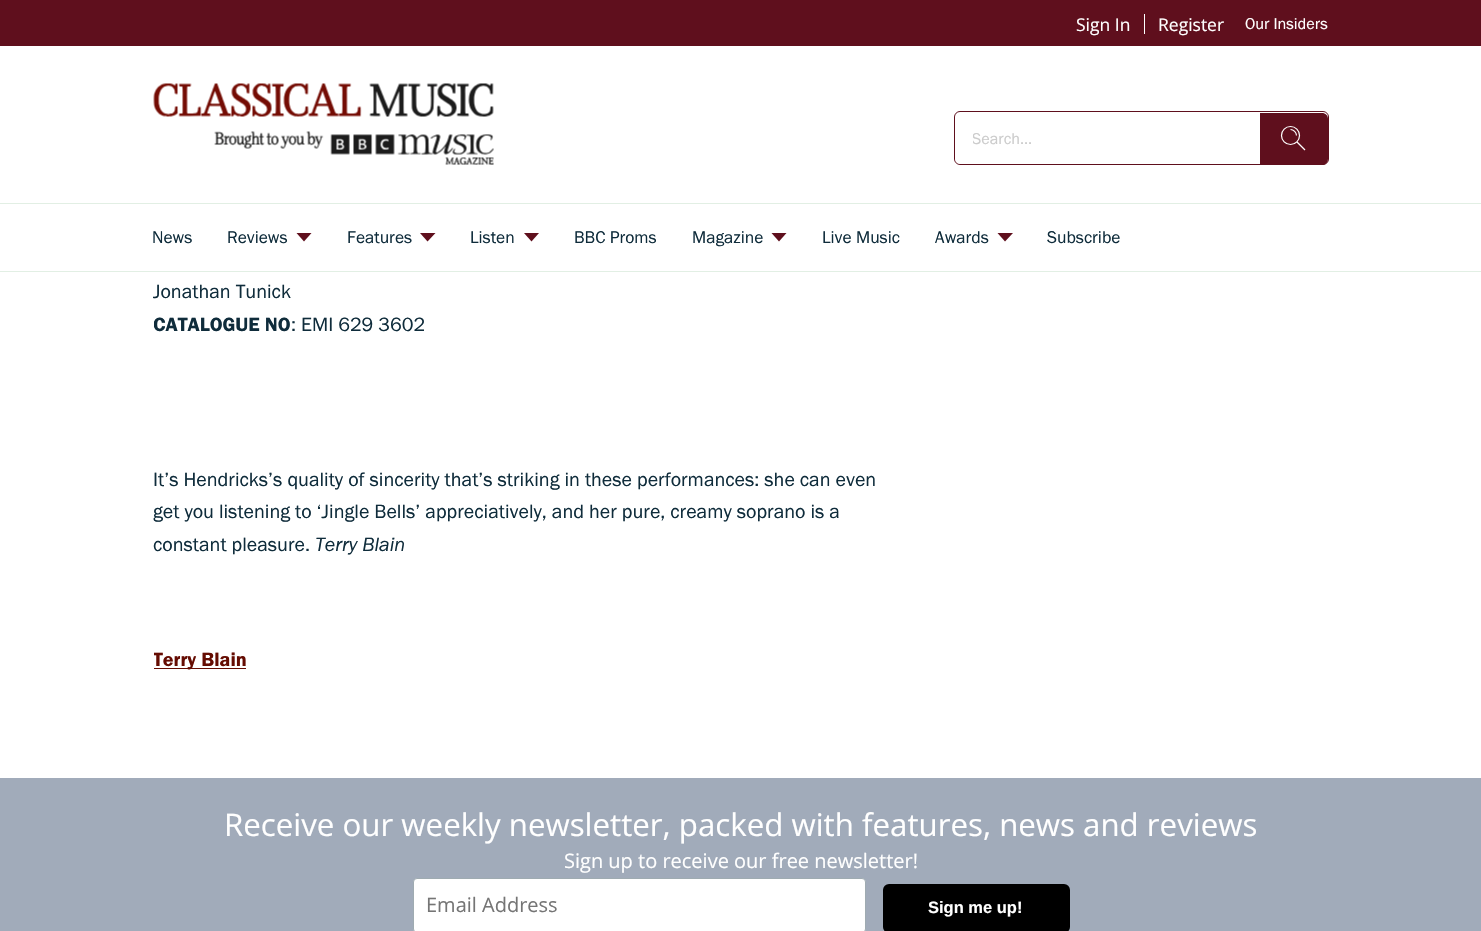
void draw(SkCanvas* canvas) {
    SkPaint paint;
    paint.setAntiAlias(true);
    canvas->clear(0xFFFFFFFF);
    paint.setColor(0xFF5F0F1D);
    canvas->drawRect(SkRect::MakeXYWH(0, 0, 1481, 46), paint);
    SkFont font1(fontMgr->matchFamilyStyle("Open Sans", SkFontStyle::Normal()), 17.5f);
    font1.setSubpixel(true);
    paint.setColor(0xFFFFFFFF);
    canvas->drawString("Sign In", 1076, 31, font1, paint);
    canvas->drawRect(SkRect::MakeXYWH(1144, 14, 1, 20), paint);
    canvas->drawString("Register", 1158, 31, font1, paint);
    SkFont font2(fontMgr->matchFamilyStyle("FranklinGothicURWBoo", SkFontStyle::Normal()), 16.25f);
    font2.setSubpixel(true);
    canvas->drawString("Our Insiders", 1245, 29, font2, paint);
    canvas->drawImageRect(SkImages::DeferredFromEncodedData(SkData::MakeFromFileName("img1.png")), SkRect::MakeXYWH(153, 83, 341, 82), SkSamplingOptions());
    paint.setStyle(SkPaint::kStroke_Style);
    paint.setStrokeWidth(1);
    paint.setColor(0xFF5F0F1D);
    canvas->drawRoundRect(SkRect::MakeXYWH(954.5f, 111.5f, 374, 53), 5.5f, 5.5f, paint);
    paint.setStyle(SkPaint::kFill_Style);
    paint.setColor(0xFFFFFFFF);
    canvas->drawRoundRect(SkRect::MakeXYWH(955, 113, 373, 51), 6, 6, paint);
    canvas->save();
    canvas->clipRect(SkRect::MakeXYWH(973, 129, 242, 19));
    paint.setColor(0xFFCCCCCC);
    canvas->drawString("Search...", 972, 144, font2, paint);
    canvas->restore();
    paint.setColor(0xFF5F0F1D);
    canvas->drawPath(SkPathBuilder().moveTo(1260, 113).lineTo(1322, 113).cubicTo(1325.5f, 113, 1328, 115.5f, 1328, 119).lineTo(1328, 159).cubicTo(1328, 162.5f, 1325.5f, 165, 1322, 165).lineTo(1260, 165).close().detach(), paint);
    paint.setStyle(SkPaint::kStroke_Style);
    paint.setStrokeWidth(1.2f);
    paint.setColor(0xFFFFFFFF);
    canvas->drawCircle(1290.5f, 135.5f, 9, paint);
    canvas->drawPath(SkPathBuilder().moveTo(1296.5f, 135.5f).cubicTo(1296.5f, 132.5f, 1293.5f, 129.5f, 1290.5f, 129.5f).detach(), paint);
    paint.setStrokeJoin(SkPaint::kRound_Join);
    canvas->drawPath(SkPathBuilder().moveTo(1305, 150).lineTo(1297, 142).detach(), paint);
    paint.setStyle(SkPaint::kFill_Style);
    paint.setColor(0xFFE2EFE4);
    canvas->drawRect(SkRect::MakeXYWH(0, 203, 1481, 1), paint);
    canvas->drawRect(SkRect::MakeXYWH(0, 271, 1481, 1), paint);
    SkFont font3(fontMgr->matchFamilyStyle("FranklinGothicURWBoo", SkFontStyle::Normal()), 17.5f);
    font3.setSubpixel(true);
    paint.setColor(0xFF0F2C3B);
    canvas->drawString("News", 152, 243, font3, paint);
    canvas->drawString("Reviews", 227, 243, font3, paint);
    paint.setColor(0xFF5F0F1D);
    canvas->drawPath(SkPathBuilder().moveTo(304, 241.5f).lineTo(296.5f, 233).lineTo(311.5f, 233).close().detach(), paint);
    paint.setColor(0xFF0F2C3B);
    canvas->drawString("Features", 347, 243, font3, paint);
    paint.setColor(0xFF5F0F1D);
    canvas->drawPath(SkPathBuilder().moveTo(427.5f, 241.5f).lineTo(420, 233).lineTo(435.5f, 233).close().detach(), paint);
    paint.setColor(0xFF0F2C3B);
    canvas->drawString("Listen", 470, 243, font3, paint);
    paint.setColor(0xFF5F0F1D);
    canvas->drawPath(SkPathBuilder().moveTo(531.5f, 241.5f).lineTo(524, 233).lineTo(539, 233).close().detach(), paint);
    paint.setColor(0xFF0F2C3B);
    canvas->drawString("BBC Proms", 574, 243, font3, paint);
    canvas->drawString("Magazine", 692, 243, font3, paint);
    paint.setColor(0xFF5F0F1D);
    canvas->drawPath(SkPathBuilder().moveTo(779, 241.5f).lineTo(771.5f, 233).lineTo(786.5f, 233).close().detach(), paint);
    paint.setColor(0xFF0F2C3B);
    canvas->drawString("Live Music", 822, 243, font3, paint);
    canvas->drawString("Awards", 935, 243, font3, paint);
    paint.setColor(0xFF5F0F1D);
    canvas->drawPath(SkPathBuilder().moveTo(1005, 241.5f).lineTo(997.5f, 233).lineTo(1013, 233).close().detach(), paint);
    paint.setColor(0xFF0F2C3B);
    canvas->drawString("Subscribe", 1047, 243, font3, paint);
    SkFont font4(fontMgr->matchFamilyStyle("FranklinGothicURWBoo", SkFontStyle::Normal()), 20);
    font4.setSubpixel(true);
    canvas->drawString("Jonathan Tunick", 153, 298, font4, paint);
    canvas->save();
    canvas->clipRect(SkRect::MakeXYWH(154, 121, 750, 465));
    SkFont font5(fontMgr->matchFamilyStyle("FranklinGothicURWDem", SkFontStyle::Normal()), 20);
    font5.setSubpixel(true);
    canvas->drawString("CATALOGUE NO", 153, 331, font5, paint);
    canvas->restore();
    canvas->drawString(": EMI 629 3602", 291, 331, font4, paint);
    canvas->drawString("It’s Hendricks’s quality of sincerity that’s striking in these performances: she can even", 153, 486, font4, paint);
    canvas->drawString("get you listening to ‘Jingle Bells’ appreciatively, and her pure, creamy soprano is a", 153, 518, font4, paint);
    canvas->drawString("constant pleasure.", 153, 551, font4, paint);
    SkFont font6(fontMgr->matchFamilyStyle("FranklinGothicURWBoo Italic", SkFontStyle::Italic()), 20);
    font6.setSubpixel(true);
    canvas->drawString("Terry Blain", 315, 551, font6, paint);
    paint.setColor(0xFF650C02);
    canvas->drawRect(SkRect::MakeXYWH(154, 668, 92, 1), paint);
    canvas->save();
    canvas->clipRect(SkRect::MakeXYWH(154, 624, 750, 91));
    canvas->drawString("Terry Blain", 153, 666, font5, paint);
    canvas->restore();
    paint.setColor(0xFFA1ABBA);
    canvas->drawRect(SkRect::MakeXYWH(0, 778, 1481, 153), paint);
    SkFont font7(fontMgr->matchFamilyStyle("Open Sans", SkFontStyle::Normal()), 31.25f);
    font7.setSubpixel(true);
    paint.setColor(0xFFFFFFFF);
    canvas->drawString("Receive our weekly newsletter, packed with features, news and reviews", 224, 836, font7, paint);
    SkFont font8(fontMgr->matchFamilyStyle("Open Sans", SkFontStyle::Normal()), 20);
    font8.setSubpixel(true);
    canvas->drawString("Sign up to receive our free newsletter!", 564, 868, font8, paint);
    canvas->drawRoundRect(SkRect::MakeXYWH(413.5f, 878.5f, 452, 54), 3.5f, 3.5f, paint);
    paint.setStyle(SkPaint::kStroke_Style);
    paint.setStrokeWidth(1);
    paint.setStrokeJoin(SkPaint::kMiter_Join);
    paint.setColor(0xFF9FABB1);
    canvas->drawRoundRect(SkRect::MakeXYWH(413.5f, 878.5f, 452, 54), 3.5f, 3.5f, paint);
    paint.setStyle(SkPaint::kFill_Style);
    paint.setColor(0xFF757575);
    canvas->drawString("Email Address", 426, 912, font8, paint);
    paint.setColor(0xFF000000);
    canvas->drawRoundRect(SkRect::MakeXYWH(884.5f, 885.5f, 184, 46), 4.5f, 4.5f, paint);
    paint.setStyle(SkPaint::kStroke_Style);
    paint.setStrokeWidth(3);
    canvas->drawRoundRect(SkRect::MakeXYWH(884.5f, 885.5f, 184, 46), 4.5f, 4.5f, paint);
    SkFont font9(fontMgr->matchFamilyStyle("Liberation Sans", SkFontStyle::Bold()), 16.5f);
    font9.setSubpixel(true);
    paint.setStyle(SkPaint::kFill_Style);
    paint.setColor(0xFFFFFFFF);
    canvas->drawString("Sign me up!", 928, 913, font9, paint);
}
